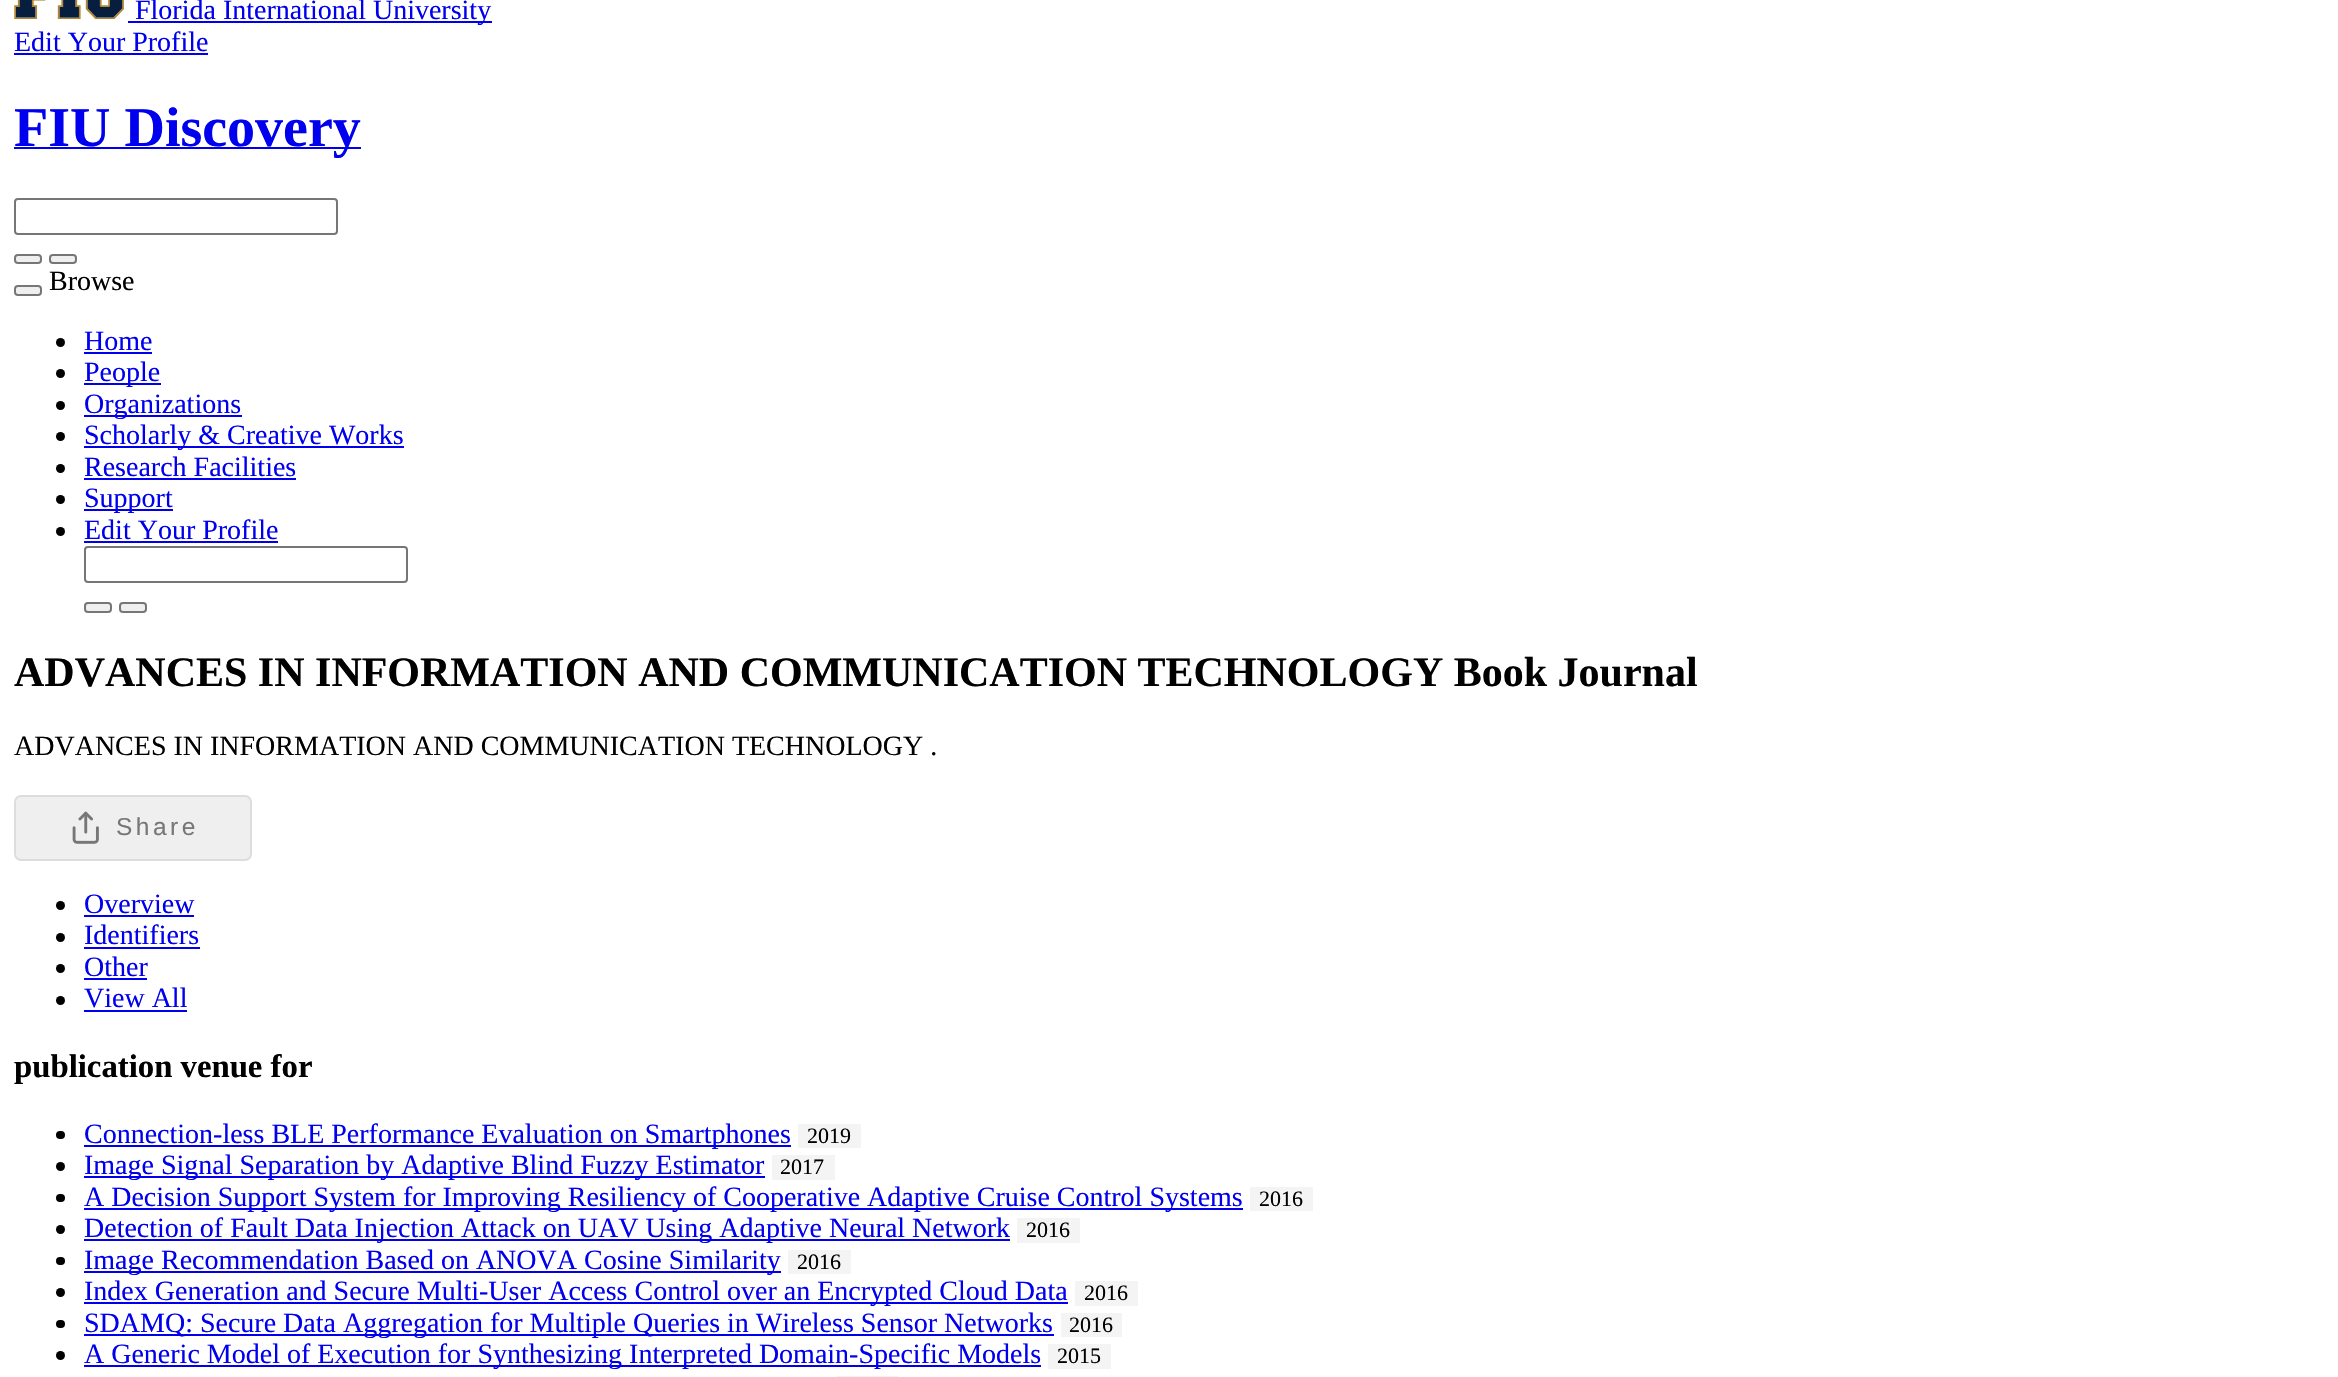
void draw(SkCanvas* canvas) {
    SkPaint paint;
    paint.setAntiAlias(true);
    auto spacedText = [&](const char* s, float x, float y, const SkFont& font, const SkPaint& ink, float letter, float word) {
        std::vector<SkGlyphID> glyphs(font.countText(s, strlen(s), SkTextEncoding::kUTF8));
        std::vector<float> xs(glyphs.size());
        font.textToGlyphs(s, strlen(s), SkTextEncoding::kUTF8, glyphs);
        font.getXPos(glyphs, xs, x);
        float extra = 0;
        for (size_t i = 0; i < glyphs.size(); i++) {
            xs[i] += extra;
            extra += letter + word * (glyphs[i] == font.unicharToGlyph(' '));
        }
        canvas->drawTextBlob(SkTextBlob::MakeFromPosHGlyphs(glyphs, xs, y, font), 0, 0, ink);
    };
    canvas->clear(0xFFFFFFFF);
    canvas->drawImageRect(SkImages::DeferredFromEncodedData(SkData::MakeFromFileName("img1.png")), SkRect::MakeXYWH(14, 0, 110, 19), SkSamplingOptions());
    paint.setColor(0xFF0000EE);
    canvas->drawRect(SkRect::MakeXYWH(128, 21, 364, 2), paint);
    SkFont font1(fontMgr->matchFamilyStyle("Liberation Serif", SkFontStyle::Normal()), 28);
    font1.setSubpixel(true);
    canvas->drawString("Florida International University", 135, 19, font1, paint);
    canvas->drawString("Edit Your Profile", 14, 51, font1, paint);
    canvas->drawRect(SkRect::MakeXYWH(14, 53, 194, 2), paint);
    canvas->drawRect(SkRect::MakeXYWH(14, 147, 347, 2), paint);
    SkFont font2(fontMgr->matchFamilyStyle("Liberation Serif", SkFontStyle::Bold()), 56);
    font2.setSubpixel(true);
    canvas->drawString("FIU Discovery", 14, 146, font2, paint);
    paint.setStyle(SkPaint::kStroke_Style);
    paint.setStrokeWidth(2);
    paint.setColor(0xFF767676);
    canvas->drawRoundRect(SkRect::MakeXYWH(15, 199, 322, 35), 3, 3, paint);
    paint.setStyle(SkPaint::kFill_Style);
    paint.setColor(0xFFEFEFEF);
    canvas->drawRoundRect(SkRect::MakeXYWH(15, 255, 26, 8), 3, 3, paint);
    paint.setStyle(SkPaint::kStroke_Style);
    paint.setColor(0xFF767676);
    canvas->drawRoundRect(SkRect::MakeXYWH(15, 255, 26, 8), 3, 3, paint);
    paint.setStyle(SkPaint::kFill_Style);
    paint.setColor(0xFFEFEFEF);
    canvas->drawRoundRect(SkRect::MakeXYWH(50, 255, 26, 8), 3, 3, paint);
    paint.setStyle(SkPaint::kStroke_Style);
    paint.setColor(0xFF767676);
    canvas->drawRoundRect(SkRect::MakeXYWH(50, 255, 26, 8), 3, 3, paint);
    paint.setStyle(SkPaint::kFill_Style);
    paint.setColor(0xFFEFEFEF);
    canvas->drawRoundRect(SkRect::MakeXYWH(15, 286, 26, 9), 3, 3, paint);
    paint.setStyle(SkPaint::kStroke_Style);
    paint.setColor(0xFF767676);
    canvas->drawRoundRect(SkRect::MakeXYWH(15, 286, 26, 9), 3, 3, paint);
    paint.setStyle(SkPaint::kFill_Style);
    paint.setColor(0xFF000000);
    canvas->drawString("Browse", 49, 290, font1, paint);
    canvas->drawCircle(60.5f, 342.5f, 4.5f, paint);
    paint.setColor(0xFF0000EE);
    canvas->drawString("Home", 84, 350, font1, paint);
    canvas->drawRect(SkRect::MakeXYWH(84, 352, 68, 2), paint);
    paint.setColor(0xFF000000);
    canvas->drawCircle(60.5f, 373.5f, 4.5f, paint);
    paint.setColor(0xFF0000EE);
    canvas->drawRect(SkRect::MakeXYWH(84, 383, 77, 2), paint);
    canvas->drawString("People", 84, 381, font1, paint);
    paint.setColor(0xFF000000);
    canvas->drawCircle(60.5f, 405.5f, 4.5f, paint);
    paint.setColor(0xFF0000EE);
    canvas->drawRect(SkRect::MakeXYWH(84, 415, 158, 2), paint);
    canvas->drawString("Organizations", 84, 413, font1, paint);
    paint.setColor(0xFF000000);
    canvas->drawCircle(60.5f, 436.5f, 4.5f, paint);
    paint.setColor(0xFF0000EE);
    canvas->drawRect(SkRect::MakeXYWH(84, 446, 320, 2), paint);
    canvas->drawString("Scholarly & Creative Works", 84, 444, font1, paint);
    paint.setColor(0xFF000000);
    canvas->drawCircle(60.5f, 468.5f, 4.5f, paint);
    paint.setColor(0xFF0000EE);
    canvas->drawString("Research Facilities", 84, 476, font1, paint);
    canvas->drawRect(SkRect::MakeXYWH(84, 478, 212, 2), paint);
    paint.setColor(0xFF000000);
    canvas->drawCircle(60.5f, 499.5f, 4.5f, paint);
    paint.setColor(0xFF0000EE);
    canvas->drawRect(SkRect::MakeXYWH(84, 509, 89, 2), paint);
    canvas->drawString("Support", 84, 507, font1, paint);
    paint.setColor(0xFF000000);
    canvas->drawCircle(60.5f, 531.5f, 4.5f, paint);
    paint.setColor(0xFF0000EE);
    canvas->drawString("Edit Your Profile", 84, 539, font1, paint);
    canvas->drawRect(SkRect::MakeXYWH(84, 541, 194, 2), paint);
    paint.setStyle(SkPaint::kStroke_Style);
    paint.setColor(0xFF767676);
    canvas->drawRoundRect(SkRect::MakeXYWH(85, 547, 322, 35), 3, 3, paint);
    paint.setStyle(SkPaint::kFill_Style);
    paint.setColor(0xFFEFEFEF);
    canvas->drawRoundRect(SkRect::MakeXYWH(85, 603, 26, 9), 3, 3, paint);
    paint.setStyle(SkPaint::kStroke_Style);
    paint.setColor(0xFF767676);
    canvas->drawRoundRect(SkRect::MakeXYWH(85, 603, 26, 9), 3, 3, paint);
    paint.setStyle(SkPaint::kFill_Style);
    paint.setColor(0xFFEFEFEF);
    canvas->drawRoundRect(SkRect::MakeXYWH(120, 603, 26, 9), 3, 3, paint);
    paint.setStyle(SkPaint::kStroke_Style);
    paint.setColor(0xFF767676);
    canvas->drawRoundRect(SkRect::MakeXYWH(120, 603, 26, 9), 3, 3, paint);
    SkFont font3(fontMgr->matchFamilyStyle("Liberation Serif", SkFontStyle::Bold()), 42);
    font3.setSubpixel(true);
    paint.setStyle(SkPaint::kFill_Style);
    paint.setColor(0xFF000000);
    canvas->drawString("ADVANCES IN INFORMATION AND COMMUNICATION TECHNOLOGY Book Journal", 14, 686, font3, paint);
    canvas->drawString("ADVANCES IN INFORMATION AND COMMUNICATION TECHNOLOGY .", 14, 755, font1, paint);
    paint.setColor(0xFFEFEFEF);
    canvas->drawRoundRect(SkRect::MakeXYWH(15, 796, 236, 64), 6, 6, paint);
    paint.setStyle(SkPaint::kStroke_Style);
    paint.setColor(0xFFDDDDDD);
    canvas->drawRoundRect(SkRect::MakeXYWH(15, 796, 236, 64), 6, 6, paint);
    canvas->drawImageRect(SkImages::DeferredFromEncodedData(SkData::MakeFromFileName("img2.png")), SkRect::MakeXYWH(72, 811, 27, 33), SkSamplingOptions());
    SkFont font4(fontMgr->matchFamilyStyle("Liberation Sans", SkFontStyle::Normal()), 24.5f);
    font4.setSubpixel(true);
    paint.setStyle(SkPaint::kFill_Style);
    paint.setColor(0xFF777777);
    spacedText("Share", 116, 835, font4, paint, 3.5f, 0);
    paint.setColor(0xFF000000);
    canvas->drawCircle(60.5f, 905.5f, 4.5f, paint);
    paint.setColor(0xFF0000EE);
    canvas->drawString("Overview", 84, 913, font1, paint);
    canvas->drawRect(SkRect::MakeXYWH(84, 915, 110, 2), paint);
    paint.setColor(0xFF000000);
    canvas->drawCircle(60.5f, 937.5f, 4.5f, paint);
    paint.setColor(0xFF0000EE);
    canvas->drawString("Identifiers", 84, 944, font1, paint);
    canvas->drawRect(SkRect::MakeXYWH(84, 947, 116, 2), paint);
    paint.setColor(0xFF000000);
    canvas->drawCircle(60.5f, 968.5f, 4.5f, paint);
    paint.setColor(0xFF0000EE);
    canvas->drawString("Other", 84, 976, font1, paint);
    canvas->drawRect(SkRect::MakeXYWH(84, 978, 63, 2), paint);
    paint.setColor(0xFF000000);
    canvas->drawCircle(60.5f, 1000.5f, 4.5f, paint);
    paint.setColor(0xFF0000EE);
    canvas->drawString("View All", 84, 1007, font1, paint);
    canvas->drawRect(SkRect::MakeXYWH(84, 1010, 103, 2), paint);
    SkFont font5(fontMgr->matchFamilyStyle("Liberation Serif", SkFontStyle::Bold()), 32.75f);
    font5.setSubpixel(true);
    paint.setColor(0xFF000000);
    canvas->drawString("publication venue for", 14, 1077, font5, paint);
    canvas->drawRoundRect(SkRect::MakeXYWH(56, 1131, 9, 8), 4, 4, paint);
    paint.setColor(0xFF0000EE);
    canvas->drawRect(SkRect::MakeXYWH(84, 1145, 707, 2), paint);
    canvas->drawString("Connection-less BLE Performance Evaluation on Smartphones", 84, 1143, font1, paint);
    paint.setColor(0xFFF4F4F4);
    canvas->drawRect(SkRect::MakeXYWH(798, 1124, 63, 24), paint);
    SkFont font6(fontMgr->matchFamilyStyle("Liberation Serif", SkFontStyle::Normal()), 22);
    font6.setSubpixel(true);
    paint.setColor(0xFF000000);
    canvas->drawString("2019", 807, 1143, font6, paint);
    canvas->drawCircle(60.5f, 1166.5f, 4.5f, paint);
    paint.setColor(0xFF0000EE);
    canvas->drawRect(SkRect::MakeXYWH(84, 1176, 681, 2), paint);
    canvas->drawString("Image Signal Separation by Adaptive Blind Fuzzy Estimator", 84, 1174, font1, paint);
    paint.setColor(0xFFF4F4F4);
    canvas->drawRect(SkRect::MakeXYWH(772, 1155, 63, 25), paint);
    paint.setColor(0xFF000000);
    canvas->drawString("2017", 780, 1174, font6, paint);
    canvas->drawRoundRect(SkRect::MakeXYWH(56, 1194, 9, 8), 4, 4, paint);
    paint.setColor(0xFF0000EE);
    canvas->drawRect(SkRect::MakeXYWH(84, 1208, 1159, 2), paint);
    canvas->drawString("A Decision Support System for Improving Resiliency of Cooperative Adaptive Cruise Control Systems", 84, 1206, font1, paint);
    paint.setColor(0xFFF4F4F4);
    canvas->drawRect(SkRect::MakeXYWH(1250, 1187, 63, 24), paint);
    paint.setColor(0xFF000000);
    canvas->drawString("2016", 1259, 1206, font6, paint);
    canvas->drawCircle(60.5f, 1229.5f, 4.5f, paint);
    paint.setColor(0xFF0000EE);
    canvas->drawRect(SkRect::MakeXYWH(84, 1239, 926, 2), paint);
    canvas->drawString("Detection of Fault Data Injection Attack on UAV Using Adaptive Neural Network", 84, 1237, font1, paint);
    paint.setColor(0xFFF4F4F4);
    canvas->drawRect(SkRect::MakeXYWH(1017, 1218, 63, 25), paint);
    paint.setColor(0xFF000000);
    canvas->drawString("2016", 1026, 1237, font6, paint);
    canvas->drawRoundRect(SkRect::MakeXYWH(56, 1257, 9, 8), 4, 4, paint);
    paint.setColor(0xFF0000EE);
    canvas->drawRect(SkRect::MakeXYWH(84, 1271, 697, 2), paint);
    canvas->drawString("Image Recommendation Based on ANOVA Cosine Similarity", 84, 1269, font1, paint);
    paint.setColor(0xFFF4F4F4);
    canvas->drawRect(SkRect::MakeXYWH(788, 1250, 63, 24), paint);
    paint.setColor(0xFF000000);
    canvas->drawString("2016", 797, 1269, font6, paint);
    canvas->drawCircle(60.5f, 1292.5f, 4.5f, paint);
    paint.setColor(0xFF0000EE);
    canvas->drawRect(SkRect::MakeXYWH(84, 1302, 984, 2), paint);
    canvas->drawString("Index Generation and Secure Multi-User Access Control over an Encrypted Cloud Data", 84, 1300, font1, paint);
    paint.setColor(0xFFF4F4F4);
    canvas->drawRect(SkRect::MakeXYWH(1075, 1281, 63, 25), paint);
    paint.setColor(0xFF000000);
    canvas->drawString("2016", 1084, 1300, font6, paint);
    canvas->drawRoundRect(SkRect::MakeXYWH(56, 1320, 9, 8), 4, 4, paint);
    paint.setColor(0xFF0000EE);
    canvas->drawRect(SkRect::MakeXYWH(84, 1334, 970, 2), paint);
    canvas->drawString("SDAMQ: Secure Data Aggregation for Multiple Queries in Wireless Sensor Networks", 84, 1332, font1, paint);
    paint.setColor(0xFFF4F4F4);
    canvas->drawRect(SkRect::MakeXYWH(1061, 1313, 61, 24), paint);
    paint.setColor(0xFF000000);
    canvas->drawString("2016", 1069, 1332, font6, paint);
    canvas->drawCircle(60.5f, 1355.5f, 4.5f, paint);
    paint.setColor(0xFF0000EE);
    canvas->drawRect(SkRect::MakeXYWH(84, 1365, 957, 2), paint);
    canvas->drawString("A Generic Model of Execution for Synthesizing Interpreted Domain-Specific Models", 84, 1363, font1, paint);
    paint.setColor(0xFFF4F4F4);
    canvas->drawRect(SkRect::MakeXYWH(1048, 1344, 63, 25), paint);
    paint.setColor(0xFF000000);
    canvas->drawString("2015", 1057, 1363, font6, paint);
    paint.setColor(0xFFF4F4F4);
    canvas->drawRect(SkRect::MakeXYWH(837, 1376, 61, 1), paint);
}
